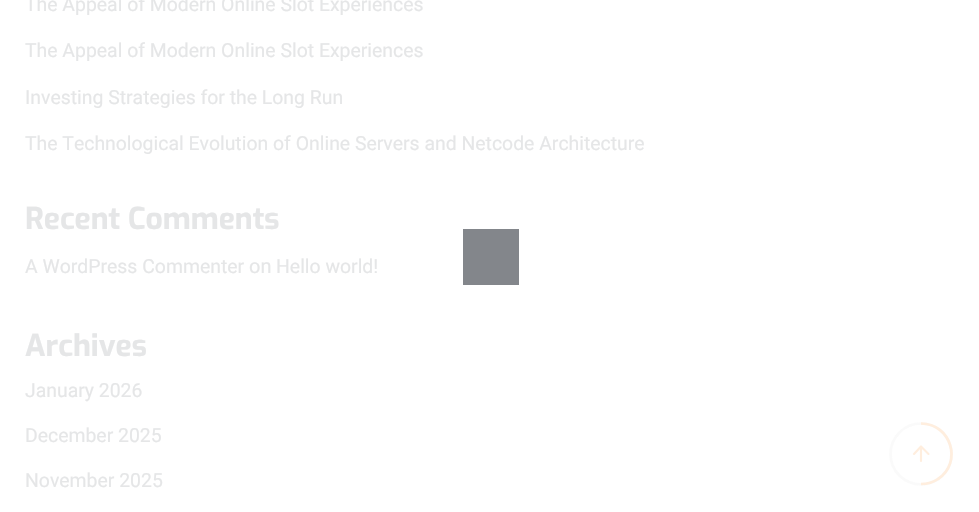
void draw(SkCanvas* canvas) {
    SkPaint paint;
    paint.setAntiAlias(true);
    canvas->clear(0xFFFFFFFF);
    SkFont font1(fontMgr->matchFamilyStyle("Roboto", SkFontStyle::Normal()), 19.4f);
    font1.setSubpixel(true);
    paint.setColor(0xFFE5E6E7);
    canvas->drawString("The Appeal of Modern Online Slot Experiences", 25, 11, font1, paint);
    canvas->drawString("The Appeal of Modern Online Slot Experiences", 25, 57, font1, paint);
    canvas->drawString("Investing Strategies for the Long Run", 25, 104, font1, paint);
    canvas->drawString("The Technological Evolution of Online Servers and Netcode Architecture", 25, 150, font1, paint);
    SkFont font2(fontMgr->matchFamilyStyle("Exo", SkFontStyle::Bold()), 30);
    font2.setSubpixel(true);
    canvas->drawString("Recent Comments", 25, 229, font2, paint);
    canvas->drawString("A WordPress Commenter", 25, 273, font1, paint);
    SkFont font3(fontMgr->matchFamilyStyle("Roboto", SkFontStyle::Normal()), 20);
    font3.setSubpixel(true);
    canvas->drawString("on", 249, 273, font3, paint);
    canvas->drawString("Hello world!", 276, 273, font1, paint);
    canvas->drawString("Archives", 25, 356, font2, paint);
    canvas->drawString("January 2026", 25, 397, font1, paint);
    canvas->drawString("December 2025", 25, 442, font1, paint);
    canvas->drawString("November 2025", 25, 487, font1, paint);
    paint.setColor(0xFF83868B);
    canvas->drawRect(SkRect::MakeXYWH(463, 229, 56, 56), paint);
    paint.setStyle(SkPaint::kStroke_Style);
    paint.setStrokeWidth(2.7f);
    paint.setColor(0x61F1F1F1);
    canvas->drawCircle(921, 454, 30.5f, paint);
    paint.setColor(0xFFFFEEDE);
    canvas->drawPath(SkPathBuilder().moveTo(921, 423.5f).cubicTo(951, 423.5f, 963, 462.5f, 938, 479).cubicTo(933, 482.5f, 927, 484, 921, 484).detach(), paint);
    paint.setStrokeWidth(2.1f);
    paint.setStrokeCap(SkPaint::kRound_Cap);
    paint.setStrokeJoin(SkPaint::kRound_Join);
    canvas->drawPath(SkPathBuilder().moveTo(921, 461).lineTo(921, 446.5f).moveTo(914, 454).lineTo(921, 446.5f).lineTo(928.5f, 454).detach(), paint);
}
